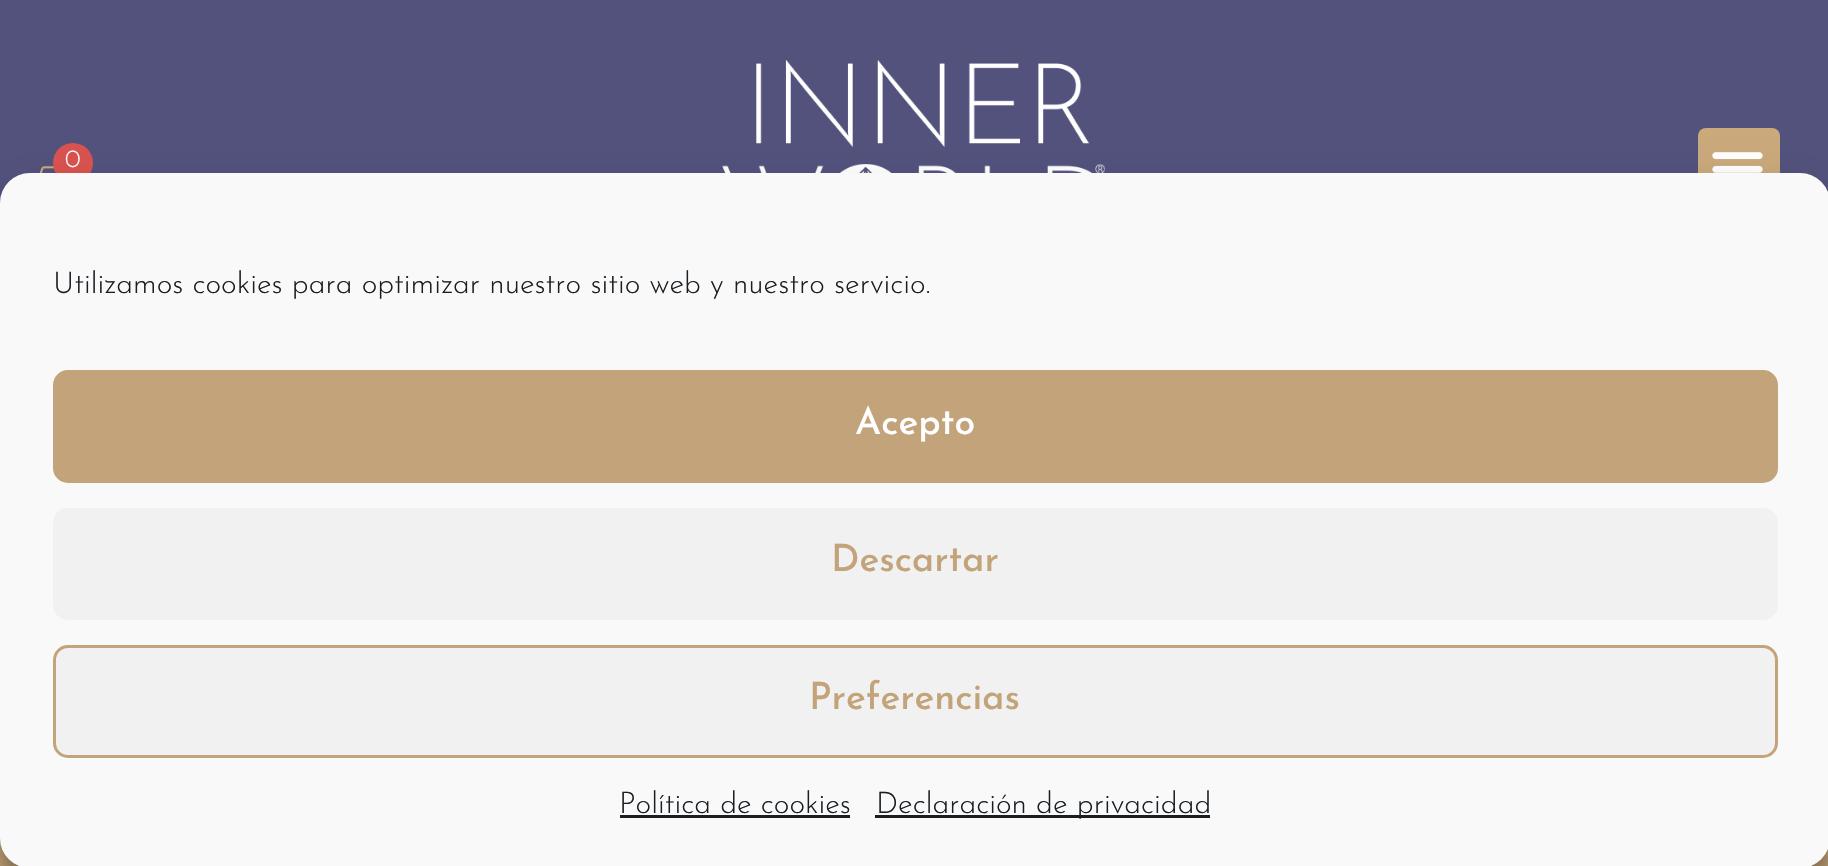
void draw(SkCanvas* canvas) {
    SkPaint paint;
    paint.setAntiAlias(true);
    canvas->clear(0xFF52527D);
    canvas->drawImageRect(SkImages::DeferredFromEncodedData(SkData::MakeFromFileName("img1.png")), SkRect::MakeXYWH(39, 166, 15, 7), SkSamplingOptions());
    paint.setColor(0xFFD9534F);
    canvas->drawCircle(73, 163, 20, paint);
    SkFont font1(fontMgr->matchFamilyStyle("Josefin Sans", SkFontStyle(300, SkFontStyle::kNormal_Width, SkFontStyle::kUpright_Slant)), 25);
    font1.setSubpixel(true);
    paint.setColor(0xFFFFFFFF);
    canvas->drawString("0", 65, 167, font1, paint);
    paint.setColor(0xFFCAA97B);
    canvas->drawRoundRect(SkRect::MakeXYWH(1698, 128, 82, 82), 8, 8, paint);
    canvas->drawImageRect(SkImages::DeferredFromEncodedData(SkData::MakeFromFileName("img2.png")), SkRect::MakeXYWH(1712, 152, 51, 21), SkSamplingOptions());
    canvas->drawImageRect(SkImages::DeferredFromEncodedData(SkData::MakeFromFileName("img3.png")), SkRect::MakeXYWH(722, 60, 383, 113), SkSamplingOptions());
    paint.setStyle(SkPaint::kStroke_Style);
    paint.setStrokeWidth(75);
    canvas->drawRect(SkRect::MakeXYWH(37.5f, 390.5f, 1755, 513), paint);
    paint.setStyle(SkPaint::kFill_Style);
    paint.setColor(0x3B000000);
    paint.setMaskFilter(SkMaskFilter::MakeBlur(kNormal_SkBlurStyle, 7.5f));
    canvas->drawRoundRect(SkRect::MakeXYWH(0, 188, 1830, 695), 30, 30, paint);
    paint.setMaskFilter(nullptr);
    paint.setColor(0x30000000);
    paint.setMaskFilter(SkMaskFilter::MakeBlur(kNormal_SkBlurStyle, 25));
    canvas->drawRoundRect(SkRect::MakeXYWH(0, 198, 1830, 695), 30, 30, paint);
    paint.setMaskFilter(nullptr);
    paint.setColor(0xFFF9F9F9);
    canvas->drawRoundRect(SkRect::MakeXYWH(1.5f, 174.5f, 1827, 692), 28.5f, 28.5f, paint);
    paint.setStyle(SkPaint::kStroke_Style);
    paint.setStrokeWidth(3);
    canvas->drawRoundRect(SkRect::MakeXYWH(1.5f, 174.5f, 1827, 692), 28.5f, 28.5f, paint);
    SkFont font2(fontMgr->matchFamilyStyle("Josefin Sans", SkFontStyle(300, SkFontStyle::kNormal_Width, SkFontStyle::kUpright_Slant)), 30);
    font2.setSubpixel(true);
    paint.setStyle(SkPaint::kFill_Style);
    paint.setColor(0xFF191E23);
    canvas->drawString("Utilizamos cookies para optimizar nuestro sitio web y nuestro servicio.", 53, 293, font2, paint);
    paint.setColor(0xFFC3A37A);
    canvas->drawRoundRect(SkRect::MakeXYWH(54.5f, 371.5f, 1722, 110), 13.5f, 13.5f, paint);
    paint.setStyle(SkPaint::kStroke_Style);
    canvas->drawRoundRect(SkRect::MakeXYWH(54.5f, 371.5f, 1722, 110), 13.5f, 13.5f, paint);
    SkFont font3(fontMgr->matchFamilyStyle("Josefin Sans", SkFontStyle(500, SkFontStyle::kNormal_Width, SkFontStyle::kUpright_Slant)), 37.5f);
    font3.setSubpixel(true);
    paint.setStyle(SkPaint::kFill_Style);
    paint.setColor(0xFFFFFFFF);
    canvas->drawString("Acepto", 855, 434, font3, paint);
    paint.setColor(0xFFF1F1F1);
    canvas->drawRoundRect(SkRect::MakeXYWH(53, 508, 1725, 112), 15, 15, paint);
    paint.setColor(0xFFC3A37A);
    canvas->drawString("Descartar", 831, 571, font3, paint);
    paint.setColor(0xFFF1F1F1);
    canvas->drawRoundRect(SkRect::MakeXYWH(54.5f, 646.5f, 1722, 110), 13.5f, 13.5f, paint);
    paint.setStyle(SkPaint::kStroke_Style);
    paint.setColor(0xFFC3A37A);
    canvas->drawRoundRect(SkRect::MakeXYWH(54.5f, 646.5f, 1722, 110), 13.5f, 13.5f, paint);
    paint.setStyle(SkPaint::kFill_Style);
    canvas->drawString("Preferencias", 809, 709, font3, paint);
    paint.setColor(0xFF191E23);
    canvas->drawString("Política de cookies", 619, 813, font2, paint);
    canvas->drawRect(SkRect::MakeXYWH(620, 815, 230, 3), paint);
    canvas->drawRect(SkRect::MakeXYWH(875, 815, 335, 3), paint);
    canvas->drawString("Declaración de privacidad", 876, 813, font2, paint);
}
